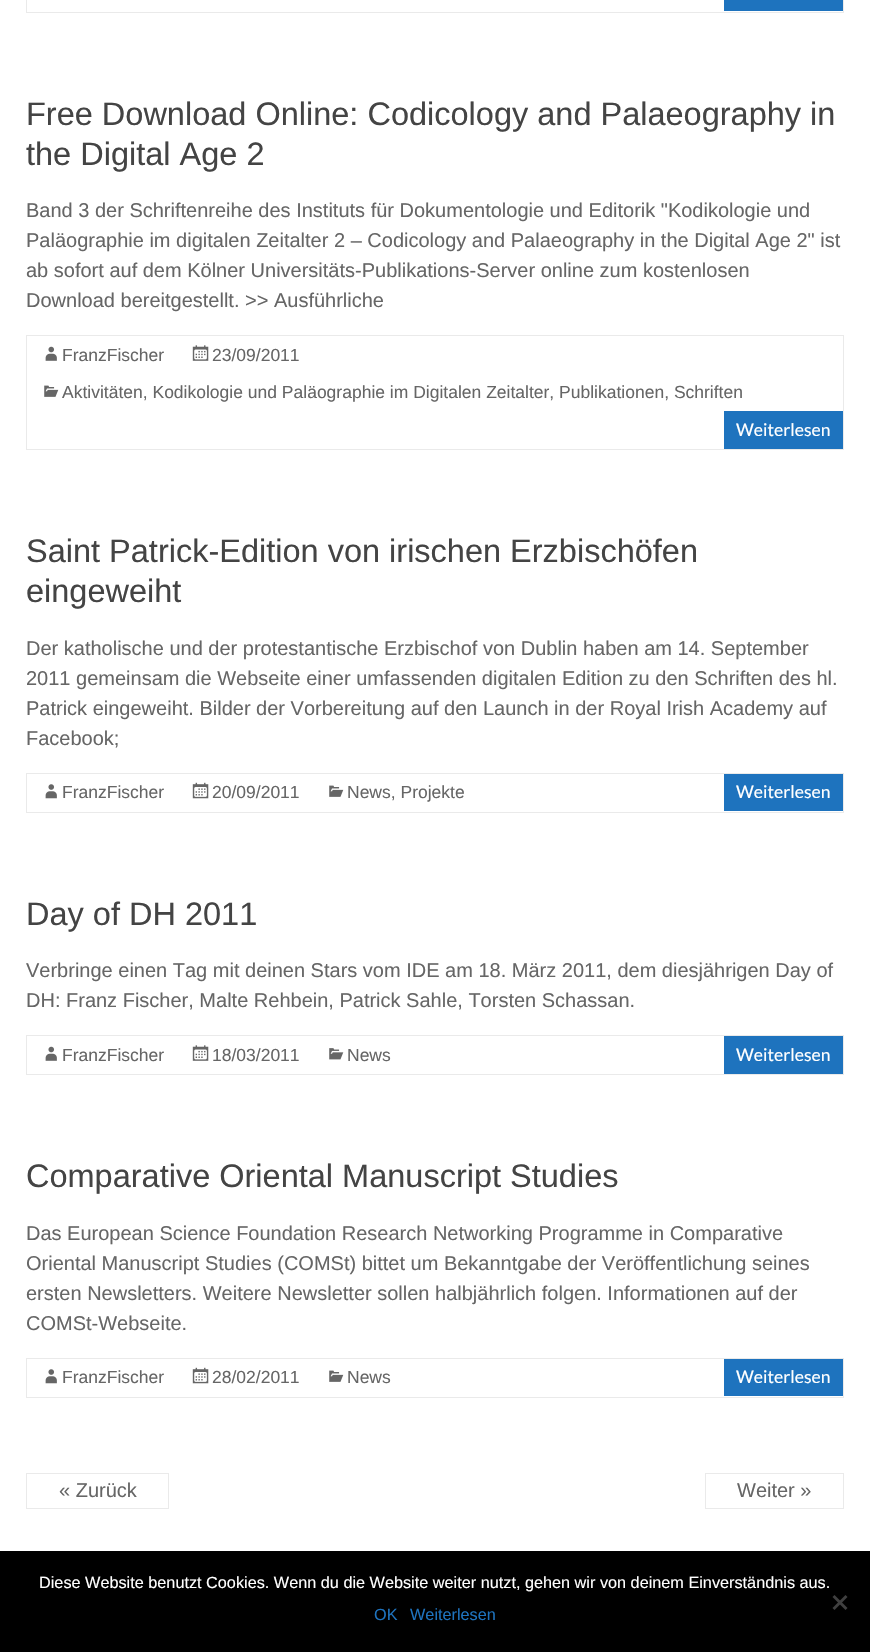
void draw(SkCanvas* canvas) {
    SkPaint paint;
    paint.setAntiAlias(true);
    canvas->clear(0xFFFFFFFF);
    paint.setStyle(SkPaint::kStroke_Style);
    paint.setStrokeWidth(1);
    paint.setColor(0xFFEAEAEA);
    canvas->drawRect(SkRect::MakeXYWH(26.5f, -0.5f, 817, 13), paint);
    paint.setStyle(SkPaint::kFill_Style);
    paint.setColor(0xFF1E73BE);
    canvas->drawRect(SkRect::MakeXYWH(724, 0, 119, 11), paint);
    SkFont font1(fontMgr->matchFamilyStyle("Liberation Sans", SkFontStyle::Normal()), 32.5f);
    font1.setSubpixel(true);
    paint.setColor(0xFF444444);
    canvas->drawString("Free Download Online: Codicology and Palaeography in", 26, 125, font1, paint);
    canvas->drawString("the Digital Age 2", 26, 165, font1, paint);
    SkFont font2(fontMgr->matchFamilyStyle("Liberation Sans", SkFontStyle::Normal()), 20);
    font2.setSubpixel(true);
    paint.setColor(0xFF666666);
    canvas->drawString("Band 3 der Schriftenreihe des Instituts für Dokumentologie und Editorik \"Kodikologie und", 26, 217, font2, paint);
    canvas->drawString("Paläographie im digitalen Zeitalter 2 – Codicology and Palaeography in the Digital Age 2\" ist", 26, 247, font2, paint);
    canvas->drawString("ab sofort auf dem Kölner Universitäts-Publikations-Server online zum kostenlosen", 26, 277, font2, paint);
    canvas->drawString("Download bereitgestellt. >> Ausführliche", 26, 307, font2, paint);
    paint.setStyle(SkPaint::kStroke_Style);
    paint.setColor(0xFFEAEAEA);
    canvas->drawRect(SkRect::MakeXYWH(26.5f, 335.5f, 817, 114), paint);
    canvas->drawImageRect(SkImages::DeferredFromEncodedData(SkData::MakeFromFileName("img1.png")), SkRect::MakeXYWH(45, 346, 12, 15), SkSamplingOptions());
    SkFont font3(fontMgr->matchFamilyStyle("Liberation Sans", SkFontStyle::Normal()), 17.5f);
    font3.setSubpixel(true);
    paint.setStyle(SkPaint::kFill_Style);
    paint.setColor(0xFF666666);
    canvas->drawString("FranzFischer", 62, 361, font3, paint);
    canvas->drawImageRect(SkImages::DeferredFromEncodedData(SkData::MakeFromFileName("img2.png")), SkRect::MakeXYWH(192, 345, 17, 16), SkSamplingOptions());
    canvas->drawString("23/09/2011", 212, 361, font3, paint);
    canvas->drawImageRect(SkImages::DeferredFromEncodedData(SkData::MakeFromFileName("img3.png")), SkRect::MakeXYWH(44, 385, 15, 12), SkSamplingOptions());
    canvas->drawString("Aktivitäten, Kodikologie und Paläographie im Digitalen Zeitalter, Publikationen, Schriften", 62, 398, font3, paint);
    paint.setColor(0xFF1E73BE);
    canvas->drawRect(SkRect::MakeXYWH(724, 411, 119, 38), paint);
    SkFont font4(fontMgr->matchFamilyStyle("Lato", SkFontStyle::Normal()), 17.5f);
    font4.setSubpixel(true);
    paint.setColor(0xFFFFFFFF);
    canvas->drawString("Weiterlesen", 736, 436, font4, paint);
    paint.setColor(0xFF444444);
    canvas->drawString("Saint Patrick-Edition von irischen Erzbischöfen", 26, 562, font1, paint);
    canvas->drawString("eingeweiht", 26, 602, font1, paint);
    paint.setColor(0xFF666666);
    canvas->drawString("Der katholische und der protestantische Erzbischof von Dublin haben am 14. September", 26, 655, font2, paint);
    canvas->drawString("2011 gemeinsam die Webseite einer umfassenden digitalen Edition zu den Schriften des hl.", 26, 685, font2, paint);
    canvas->drawString("Patrick eingeweiht. Bilder der Vorbereitung auf den Launch in der Royal Irish Academy auf", 26, 715, font2, paint);
    canvas->drawString("Facebook;", 26, 745, font2, paint);
    paint.setStyle(SkPaint::kStroke_Style);
    paint.setColor(0xFFEAEAEA);
    canvas->drawRect(SkRect::MakeXYWH(26.5f, 773.5f, 817, 39), paint);
    canvas->drawImageRect(SkImages::DeferredFromEncodedData(SkData::MakeFromFileName("img4.png")), SkRect::MakeXYWH(45, 784, 12, 15), SkSamplingOptions());
    paint.setStyle(SkPaint::kFill_Style);
    paint.setColor(0xFF666666);
    canvas->drawString("FranzFischer", 62, 798, font3, paint);
    canvas->drawImageRect(SkImages::DeferredFromEncodedData(SkData::MakeFromFileName("img5.png")), SkRect::MakeXYWH(192, 782, 17, 17), SkSamplingOptions());
    canvas->drawString("20/09/2011", 212, 798, font3, paint);
    canvas->drawImageRect(SkImages::DeferredFromEncodedData(SkData::MakeFromFileName("img3.png")), SkRect::MakeXYWH(329, 785, 15, 12), SkSamplingOptions());
    canvas->drawString("News, Projekte", 347, 798, font3, paint);
    paint.setColor(0xFF1E73BE);
    canvas->drawRect(SkRect::MakeXYWH(724, 774, 119, 37), paint);
    paint.setColor(0xFFFFFFFF);
    canvas->drawString("Weiterlesen", 736, 798, font4, paint);
    paint.setColor(0xFF444444);
    canvas->drawString("Day of DH 2011", 26, 925, font1, paint);
    paint.setColor(0xFF666666);
    canvas->drawString("Verbringe einen Tag mit deinen Stars vom IDE am 18. März 2011, dem diesjährigen Day of", 26, 977, font2, paint);
    canvas->drawString("DH: Franz Fischer, Malte Rehbein, Patrick Sahle, Torsten Schassan.", 26, 1007, font2, paint);
    paint.setStyle(SkPaint::kStroke_Style);
    paint.setColor(0xFFEAEAEA);
    canvas->drawRect(SkRect::MakeXYWH(26.5f, 1035.5f, 817, 39), paint);
    canvas->drawImageRect(SkImages::DeferredFromEncodedData(SkData::MakeFromFileName("img1.png")), SkRect::MakeXYWH(45, 1046, 12, 15), SkSamplingOptions());
    paint.setStyle(SkPaint::kFill_Style);
    paint.setColor(0xFF666666);
    canvas->drawString("FranzFischer", 62, 1061, font3, paint);
    canvas->drawImageRect(SkImages::DeferredFromEncodedData(SkData::MakeFromFileName("img2.png")), SkRect::MakeXYWH(192, 1045, 17, 16), SkSamplingOptions());
    canvas->drawString("18/03/2011", 212, 1061, font3, paint);
    canvas->drawImageRect(SkImages::DeferredFromEncodedData(SkData::MakeFromFileName("img6.png")), SkRect::MakeXYWH(329, 1048, 15, 12), SkSamplingOptions());
    canvas->drawString("News", 347, 1061, font3, paint);
    paint.setColor(0xFF1E73BE);
    canvas->drawRect(SkRect::MakeXYWH(724, 1036, 119, 38), paint);
    paint.setColor(0xFFFFFFFF);
    canvas->drawString("Weiterlesen", 736, 1061, font4, paint);
    paint.setColor(0xFF444444);
    canvas->drawString("Comparative Oriental Manuscript Studies", 26, 1187, font1, paint);
    paint.setColor(0xFF666666);
    canvas->drawString("Das European Science Foundation Research Networking Programme in Comparative", 26, 1240, font2, paint);
    canvas->drawString("Oriental Manuscript Studies (COMSt) bittet um Bekanntgabe der Veröffentlichung seines", 26, 1270, font2, paint);
    canvas->drawString("ersten Newsletters. Weitere Newsletter sollen halbjährlich folgen. Informationen auf der", 26, 1300, font2, paint);
    canvas->drawString("COMSt-Webseite.", 26, 1330, font2, paint);
    paint.setStyle(SkPaint::kStroke_Style);
    paint.setColor(0xFFEAEAEA);
    canvas->drawRect(SkRect::MakeXYWH(26.5f, 1358.5f, 817, 39), paint);
    canvas->drawImageRect(SkImages::DeferredFromEncodedData(SkData::MakeFromFileName("img4.png")), SkRect::MakeXYWH(45, 1369, 12, 15), SkSamplingOptions());
    paint.setStyle(SkPaint::kFill_Style);
    paint.setColor(0xFF666666);
    canvas->drawString("FranzFischer", 62, 1383, font3, paint);
    canvas->drawImageRect(SkImages::DeferredFromEncodedData(SkData::MakeFromFileName("img5.png")), SkRect::MakeXYWH(192, 1367, 17, 17), SkSamplingOptions());
    canvas->drawString("28/02/2011", 212, 1383, font3, paint);
    canvas->drawImageRect(SkImages::DeferredFromEncodedData(SkData::MakeFromFileName("img3.png")), SkRect::MakeXYWH(329, 1370, 15, 12), SkSamplingOptions());
    canvas->drawString("News", 347, 1383, font3, paint);
    paint.setColor(0xFF1E73BE);
    canvas->drawRect(SkRect::MakeXYWH(724, 1359, 119, 37), paint);
    paint.setColor(0xFFFFFFFF);
    canvas->drawString("Weiterlesen", 736, 1383, font4, paint);
    paint.setStyle(SkPaint::kStroke_Style);
    paint.setColor(0xFFEAEAEA);
    canvas->drawRect(SkRect::MakeXYWH(26.5f, 1473.5f, 142, 35), paint);
    paint.setStyle(SkPaint::kFill_Style);
    paint.setColor(0xFF666666);
    canvas->drawString("« Zurück", 59, 1497, font2, paint);
    paint.setStyle(SkPaint::kStroke_Style);
    paint.setColor(0xFFEAEAEA);
    canvas->drawRect(SkRect::MakeXYWH(705.5f, 1473.5f, 138, 35), paint);
    paint.setStyle(SkPaint::kFill_Style);
    paint.setColor(0xFF666666);
    canvas->drawString("Weiter »", 737, 1497, font2, paint);
    paint.setColor(0xFF000000);
    canvas->drawRect(SkRect::MakeXYWH(0, 1551, 870, 101), paint);
    SkFont font5(fontMgr->matchFamilyStyle("Liberation Sans", SkFontStyle::Normal()), 16.25f);
    font5.setSubpixel(true);
    paint.setColor(0xFFFFFFFF);
    canvas->drawString("Diese Website benutzt Cookies. Wenn du die Website weiter nutzt, gehen wir von deinem Einverständnis aus.", 39, 1588, font5, paint);
    paint.setColor(0xFF404040);
    canvas->drawPath(SkPathBuilder().moveTo(845.5f, 1595).lineTo(847.5f, 1597).lineTo(834.5f, 1610).lineTo(832.5f, 1608).close().detach(), paint);
    canvas->drawPath(SkPathBuilder().moveTo(832.5f, 1597).lineTo(834.5f, 1595).lineTo(847.5f, 1608).lineTo(845.5f, 1610).close().detach(), paint);
    paint.setColor(0xFF1E73BE);
    canvas->drawString("OK", 374, 1620, font5, paint);
    canvas->drawString("Weiterlesen", 410, 1620, font5, paint);
}
